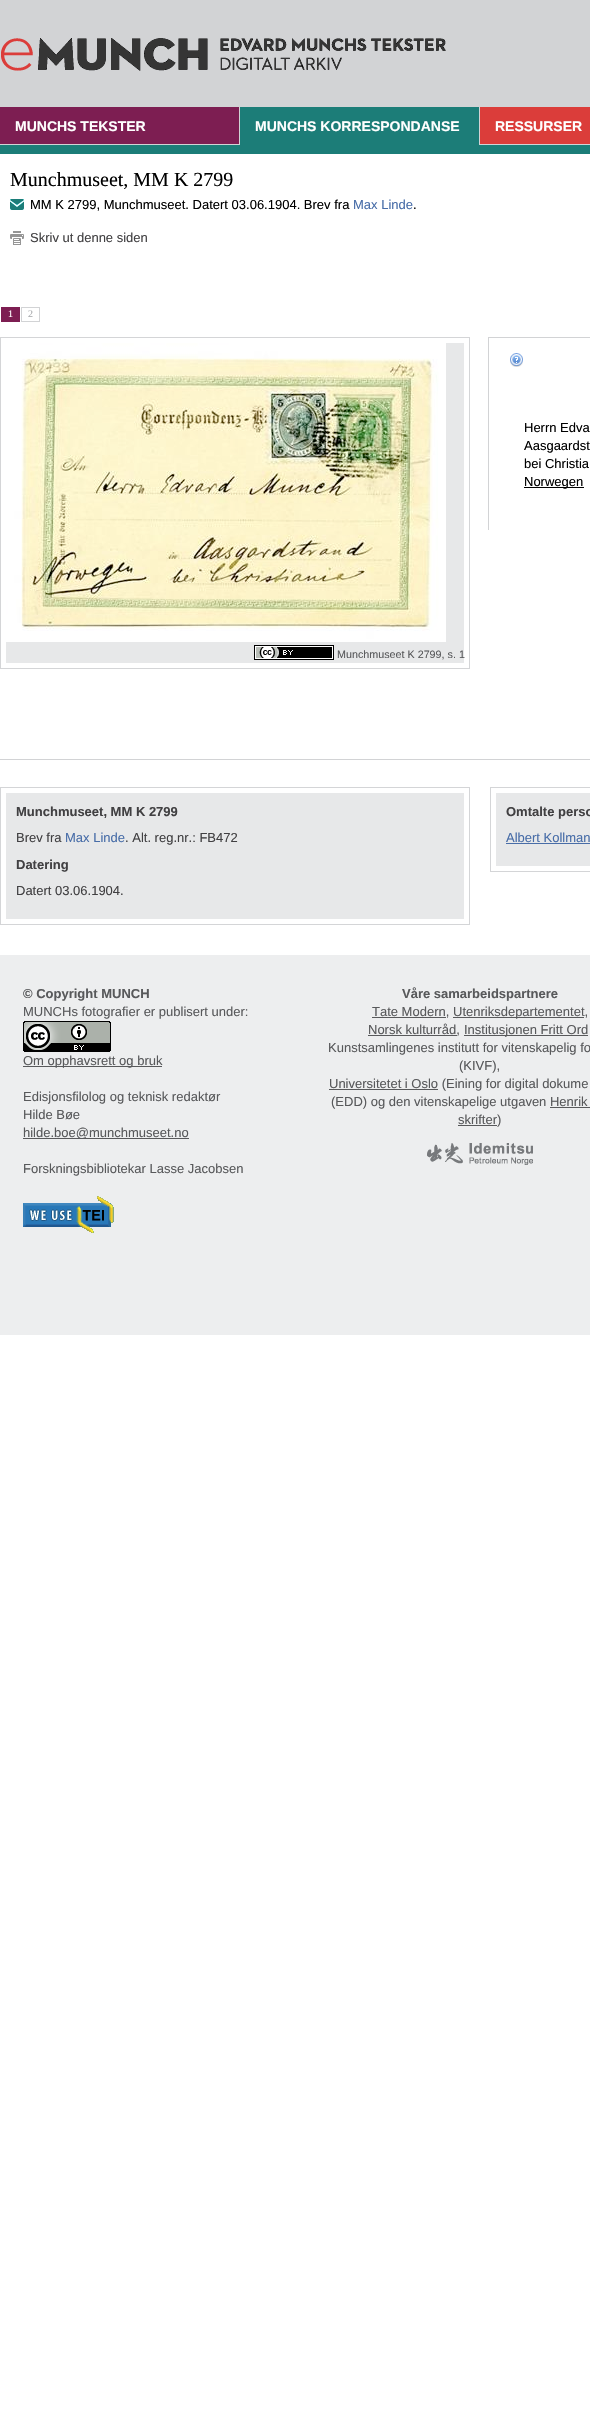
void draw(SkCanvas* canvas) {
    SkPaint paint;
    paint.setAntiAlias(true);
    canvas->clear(0xFFFFFFFF);
    paint.setColor(0xFFD2D3D5);
    canvas->drawRect(SkRect::MakeXYWH(0, 0, 590, 145), paint);
    canvas->drawImageRect(SkImages::DeferredFromEncodedData(SkData::MakeFromFileName("img1.png")), SkRect::MakeXYWH(1, 38, 445, 33), SkSamplingOptions());
    paint.setColor(0xFF1C7D78);
    canvas->drawRect(SkRect::MakeXYWH(0, 145, 590, 9), paint);
    paint.setColor(0xFF7D1E52);
    canvas->drawRect(SkRect::MakeXYWH(0, 107, 239, 37), paint);
    SkFont font1(fontMgr->matchFamilyStyle("Liberation Sans", SkFontStyle::Bold()), 14);
    font1.setSubpixel(true);
    paint.setColor(0xFFFFFFFF);
    canvas->drawString("MUNCHS TEKSTER", 15, 131, font1, paint);
    paint.setColor(0xFF1C7D78);
    canvas->drawRect(SkRect::MakeXYWH(240, 107, 239, 38), paint);
    paint.setColor(0xFFFFFFFF);
    canvas->drawString("MUNCHS KORRESPONDANSE", 255, 131, font1, paint);
    paint.setColor(0xFFDB3D3A);
    canvas->drawRect(SkRect::MakeXYWH(480, 107, 110, 37), paint);
    paint.setColor(0xFFFFFFFF);
    canvas->drawString("RESSURSER", 495, 131, font1, paint);
    SkFont font2(fontMgr->matchFamilyStyle("Liberation Serif", SkFontStyle::Normal()), 20);
    font2.setSubpixel(true);
    paint.setColor(0xFF000000);
    canvas->drawString("Munchmuseet, MM K 2799", 10, 186, font2, paint);
    canvas->drawImageRect(SkImages::DeferredFromEncodedData(SkData::MakeFromFileName("img2.png")), SkRect::MakeXYWH(10, 199, 14, 11), SkSamplingOptions());
    SkFont font3(fontMgr->matchFamilyStyle("Liberation Sans", SkFontStyle::Normal()), 13);
    font3.setSubpixel(true);
    canvas->drawString("MM K 2799, Munchmuseet. Datert 03.06.1904. Brev fra", 30, 209, font3, paint);
    paint.setColor(0xFF486DA8);
    canvas->drawString("Max Linde", 353, 209, font3, paint);
    paint.setColor(0xFF000000);
    canvas->drawString(".", 413, 209, font3, paint);
    canvas->drawImageRect(SkImages::DeferredFromEncodedData(SkData::MakeFromFileName("img3.png")), SkRect::MakeXYWH(10, 231, 14, 14), SkSamplingOptions());
    paint.setColor(0xFF414042);
    canvas->drawString("Skriv ut denne siden", 30, 242, font3, paint);
    paint.setColor(0xFF7D1E52);
    canvas->drawRect(SkRect::MakeXYWH(1, 307, 19, 15), paint);
    SkFont font4(fontMgr->matchFamilyStyle("Liberation Serif", SkFontStyle::Normal()), 10);
    font4.setSubpixel(true);
    paint.setColor(0xFFFFFFFF);
    canvas->drawString("1", 8, 317, font4, paint);
    paint.setStyle(SkPaint::kStroke_Style);
    paint.setStrokeWidth(1);
    paint.setColor(0xFFD2D3D5);
    canvas->drawRect(SkRect::MakeXYWH(21.5f, 307.5f, 18, 14), paint);
    paint.setStyle(SkPaint::kFill_Style);
    paint.setColor(0xFFA7A9AC);
    canvas->drawString("2", 28, 317, font4, paint);
    paint.setColor(0xFFD2D3D5);
    canvas->drawRect(SkRect::MakeXYWH(488, 337, 102, 1), paint);
    canvas->drawRect(SkRect::MakeXYWH(488, 337, 1, 193), paint);
    canvas->drawImageRect(SkImages::DeferredFromEncodedData(SkData::MakeFromFileName("img4.png")), SkRect::MakeXYWH(510, 353, 13, 14), SkSamplingOptions());
    paint.setColor(0xFF000000);
    canvas->drawString("Herrn Edva", 524, 432, font3, paint);
    canvas->drawString("Aasgaardst", 524, 450, font3, paint);
    canvas->drawString("bei Christia", 524, 468, font3, paint);
    canvas->drawRect(SkRect::MakeXYWH(524, 487, 60, 1), paint);
    canvas->drawString("Norwegen", 524, 486, font3, paint);
    paint.setStyle(SkPaint::kStroke_Style);
    paint.setColor(0xFFD4D5D7);
    canvas->drawRect(SkRect::MakeXYWH(0.5f, 337.5f, 469, 331), paint);
    paint.setStyle(SkPaint::kFill_Style);
    paint.setColor(0xFFE7E8E9);
    canvas->drawRect(SkRect::MakeXYWH(6, 343, 458, 320), paint);
    canvas->drawImageRect(SkImages::DeferredFromEncodedData(SkData::MakeFromFileName("img5.png")), SkRect::MakeXYWH(6, 343, 440, 299), SkSamplingOptions());
    canvas->drawImageRect(SkImages::DeferredFromEncodedData(SkData::MakeFromFileName("img6.png")), SkRect::MakeXYWH(254, 645, 80, 15), SkSamplingOptions());
    SkFont font5(fontMgr->matchFamilyStyle("Liberation Sans", SkFontStyle::Normal()), 10.75f);
    font5.setSubpixel(true);
    paint.setColor(0xFF58595B);
    canvas->drawString("Munchmuseet K 2799, s. 1", 337, 658, font5, paint);
    paint.setColor(0xFFD2D3D5);
    canvas->drawRect(SkRect::MakeXYWH(0, 759, 590, 1), paint);
    paint.setStyle(SkPaint::kStroke_Style);
    paint.setColor(0xFFD4D5D7);
    canvas->drawRect(SkRect::MakeXYWH(0.5f, 787.5f, 469, 137), paint);
    paint.setStyle(SkPaint::kFill_Style);
    paint.setColor(0xFFE7E8E9);
    canvas->drawRect(SkRect::MakeXYWH(6, 793, 458, 126), paint);
    SkFont font6(fontMgr->matchFamilyStyle("Liberation Sans", SkFontStyle::Bold()), 13);
    font6.setSubpixel(true);
    paint.setColor(0xFF414042);
    canvas->drawString("Munchmuseet, MM K 2799", 16, 816, font6, paint);
    canvas->drawString("Brev fra", 16, 842, font3, paint);
    paint.setColor(0xFF486DA8);
    canvas->drawString("Max Linde", 65, 842, font3, paint);
    paint.setColor(0xFF414042);
    canvas->drawString(". Alt. reg.nr.: FB472", 125, 842, font3, paint);
    canvas->drawString("Datering", 16, 869, font6, paint);
    canvas->drawString("Datert 03.06.1904.", 16, 895, font3, paint);
    paint.setStyle(SkPaint::kStroke_Style);
    paint.setColor(0xFFD4D5D7);
    canvas->drawRect(SkRect::MakeXYWH(490.5f, 787.5f, 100, 84), paint);
    paint.setStyle(SkPaint::kFill_Style);
    paint.setColor(0xFFE7E8E9);
    canvas->drawRect(SkRect::MakeXYWH(496, 793, 94, 73), paint);
    paint.setColor(0xFF414042);
    canvas->drawString("Omtalte perso", 506, 816, font6, paint);
    paint.setColor(0xFF486DA8);
    canvas->drawString("Albert Kollman", 506, 842, font3, paint);
    canvas->drawRect(SkRect::MakeXYWH(506, 843, 84, 1), paint);
    paint.setColor(0xFFEDEEEF);
    canvas->drawRect(SkRect::MakeXYWH(0, 955, 590, 380), paint);
    paint.setColor(0xFF58595B);
    canvas->drawString("© Copyright MUNCH", 23, 998, font6, paint);
    canvas->drawString("MUNCHs fotografier er publisert under:", 23, 1016, font3, paint);
    canvas->drawImageRect(SkImages::DeferredFromEncodedData(SkData::MakeFromFileName("img7.png")), SkRect::MakeXYWH(23, 1021, 88, 31), SkSamplingOptions());
    canvas->drawRect(SkRect::MakeXYWH(23, 1066, 139, 1), paint);
    canvas->drawString("Om opphavsrett og bruk", 23, 1065, font3, paint);
    canvas->drawString("Edisjonsfilolog og teknisk redaktør", 23, 1101, font3, paint);
    canvas->drawString("Hilde Bøe", 23, 1119, font3, paint);
    canvas->drawRect(SkRect::MakeXYWH(23, 1138, 166, 1), paint);
    canvas->drawString("hilde.boe@munchmuseet.no", 23, 1137, font3, paint);
    canvas->drawString("Forskningsbibliotekar Lasse Jacobsen", 23, 1173, font3, paint);
    canvas->drawImageRect(SkImages::DeferredFromEncodedData(SkData::MakeFromFileName("img8.png")), SkRect::MakeXYWH(23, 1196, 91, 37), SkSamplingOptions());
    canvas->drawString("Våre samarbeidspartnere", 402, 998, font6, paint);
    canvas->drawRect(SkRect::MakeXYWH(372, 1017, 74, 1), paint);
    canvas->drawString("Tate Modern,", 372, 1016, font3, paint);
    canvas->drawRect(SkRect::MakeXYWH(453, 1017, 131, 1), paint);
    canvas->drawString("Utenriksdepartementet,", 453, 1016, font3, paint);
    canvas->drawRect(SkRect::MakeXYWH(368, 1035, 89, 1), paint);
    canvas->drawString("Norsk kulturråd,", 368, 1034, font3, paint);
    canvas->drawRect(SkRect::MakeXYWH(464, 1035, 124, 1), paint);
    canvas->drawString("Institusjonen Fritt Ord", 464, 1034, font3, paint);
    canvas->drawString("Kunstsamlingenes institutt for vitenskapelig fo", 328, 1052, font3, paint);
    canvas->drawString("(KIVF),", 459, 1070, font3, paint);
    canvas->drawRect(SkRect::MakeXYWH(329, 1089, 109, 1), paint);
    canvas->drawString("Universitetet i Oslo (Eining for digital dokume", 329, 1088, font3, paint);
    canvas->drawString("(EDD) og den vitenskapelige utgaven Henrik", 331, 1106, font3, paint);
    canvas->drawRect(SkRect::MakeXYWH(458, 1125, 39, 1), paint);
    canvas->drawString("skrifter)", 458, 1124, font3, paint);
    canvas->drawRect(SkRect::MakeXYWH(550, 1107, 40, 1), paint);
    canvas->drawImageRect(SkImages::DeferredFromEncodedData(SkData::MakeFromFileName("img9.png")), SkRect::MakeXYWH(427, 1143, 106, 22), SkSamplingOptions());
}
